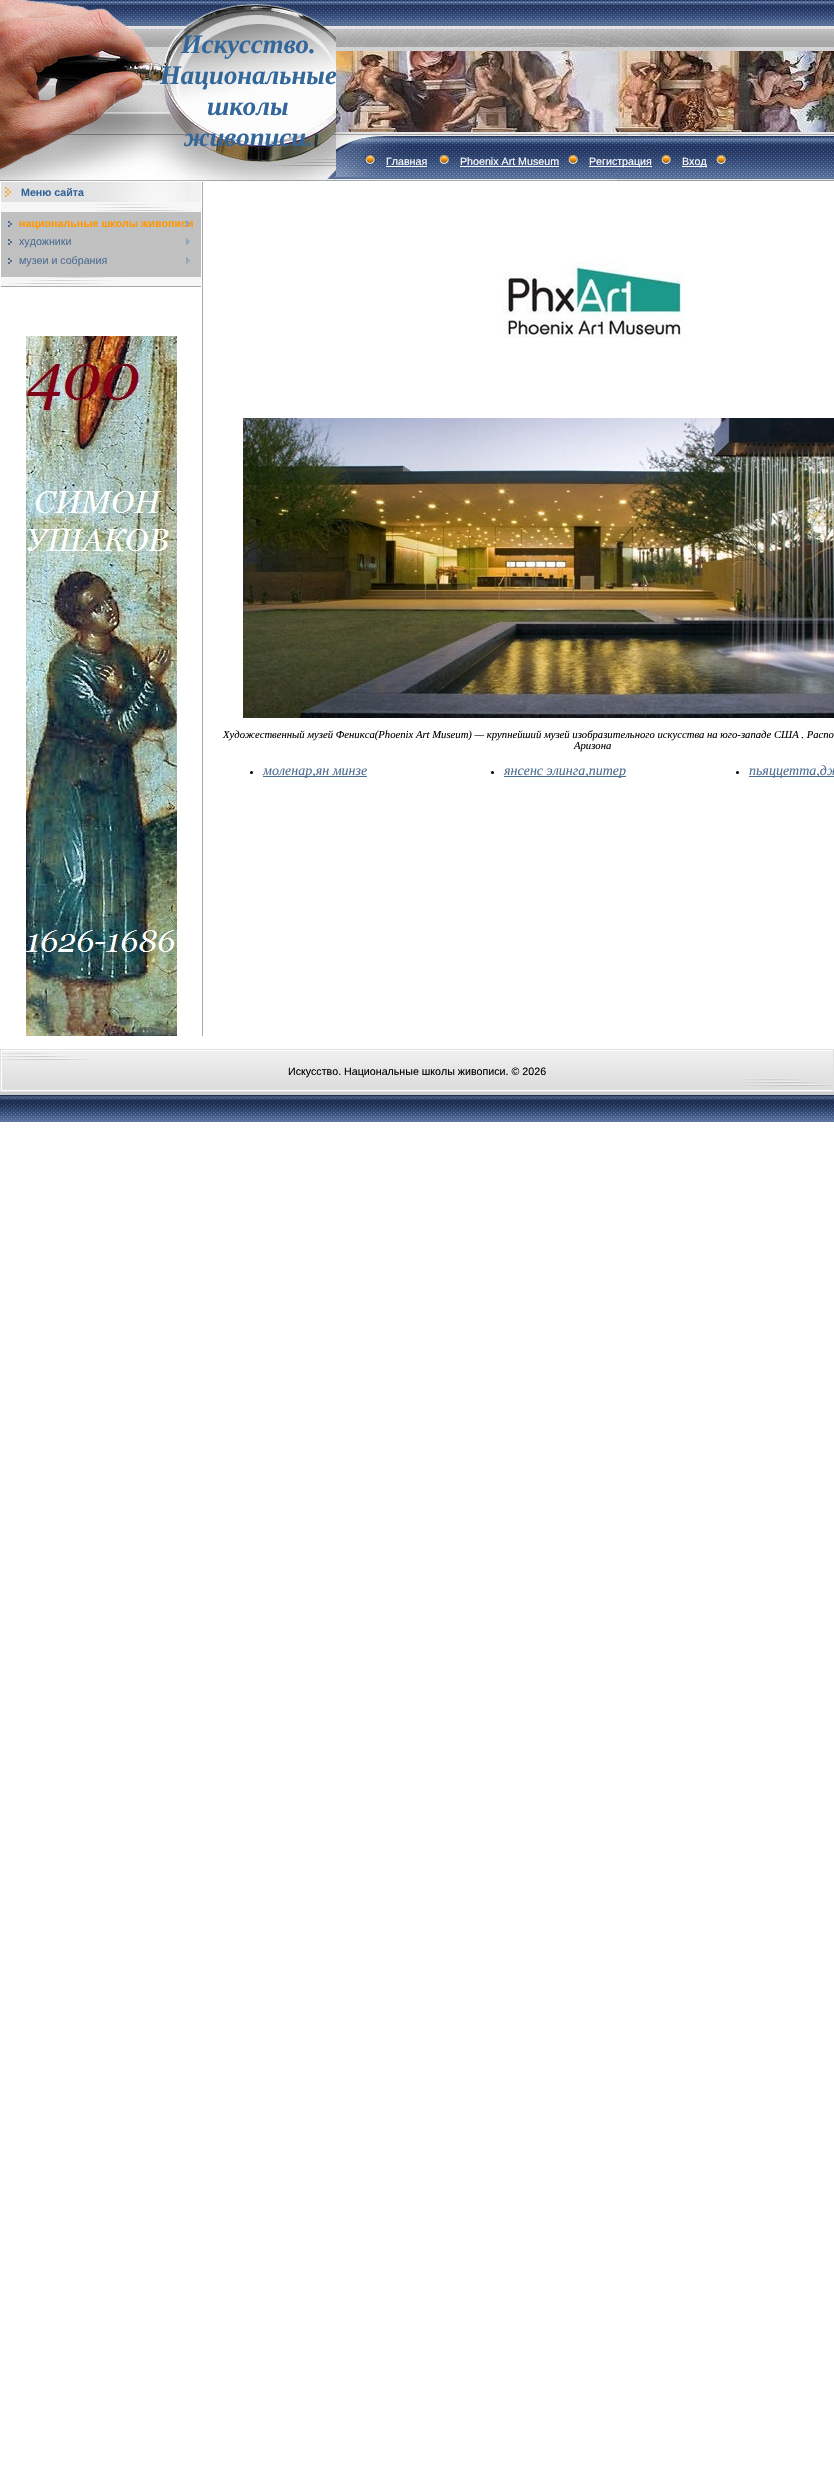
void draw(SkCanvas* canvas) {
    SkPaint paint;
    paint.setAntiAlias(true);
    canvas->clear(0xFFFFFFFF);
    paint.setColor(0xFFA1A1A1);
    canvas->drawRect(SkRect::MakeXYWH(753, 180, 81, 1), paint);
    canvas->drawImageRect(SkImages::DeferredFromEncodedData(SkData::MakeFromFileName("img1.png")), SkRect::MakeXYWH(753, 0, 81, 180), SkSamplingOptions());
    canvas->drawImageRect(SkImages::DeferredFromEncodedData(SkData::MakeFromFileName("img2.png")), SkRect::MakeXYWH(0, 0, 336, 181), SkSamplingOptions());
    SkFont font1(fontMgr->matchFamilyStyle("Liberation Serif", SkFontStyle::BoldItalic()), 26.75f);
    font1.setSubpixel(true);
    paint.setColor(0xFF336699);
    canvas->drawString("Искусство.", 181, 53, font1, paint);
    canvas->drawString("Национальные", 160, 84, font1, paint);
    canvas->drawString("школы", 207, 115, font1, paint);
    canvas->drawString("живописи.", 184, 146, font1, paint);
    canvas->drawImageRect(SkImages::DeferredFromEncodedData(SkData::MakeFromFileName("img3.png")), SkRect::MakeXYWH(336, 0, 417, 181), SkSamplingOptions());
    canvas->drawImageRect(SkImages::DeferredFromEncodedData(SkData::MakeFromFileName("img4.png")), SkRect::MakeXYWH(336, 51, 498, 81), SkSamplingOptions());
    canvas->drawImageRect(SkImages::DeferredFromEncodedData(SkData::MakeFromFileName("img5.png")), SkRect::MakeXYWH(365, 154, 11, 11), SkSamplingOptions());
    SkFont font2(fontMgr->matchFamilyStyle("Liberation Sans", SkFontStyle::Normal()), 10.67f);
    font2.setSubpixel(true);
    paint.setColor(0xFFFFFFFF);
    canvas->drawString("Главная", 386, 165, font2, paint);
    canvas->drawRect(SkRect::MakeXYWH(386, 166, 41, 1), paint);
    canvas->drawImageRect(SkImages::DeferredFromEncodedData(SkData::MakeFromFileName("img6.png")), SkRect::MakeXYWH(439, 154, 11, 11), SkSamplingOptions());
    canvas->drawString("Phoenix Art Museum", 460, 165, font2, paint);
    canvas->drawRect(SkRect::MakeXYWH(460, 166, 99, 1), paint);
    canvas->drawImageRect(SkImages::DeferredFromEncodedData(SkData::MakeFromFileName("img7.png")), SkRect::MakeXYWH(568, 154, 11, 11), SkSamplingOptions());
    canvas->drawRect(SkRect::MakeXYWH(589, 166, 63, 1), paint);
    canvas->drawString("Регистрация", 589, 165, font2, paint);
    canvas->drawImageRect(SkImages::DeferredFromEncodedData(SkData::MakeFromFileName("img8.png")), SkRect::MakeXYWH(661, 154, 11, 11), SkSamplingOptions());
    canvas->drawRect(SkRect::MakeXYWH(682, 166, 25, 1), paint);
    canvas->drawString("Вход", 682, 165, font2, paint);
    canvas->drawImageRect(SkImages::DeferredFromEncodedData(SkData::MakeFromFileName("img9.png")), SkRect::MakeXYWH(716, 154, 11, 11), SkSamplingOptions());
    canvas->drawImageRect(SkImages::DeferredFromEncodedData(SkData::MakeFromFileName("img10.png")), SkRect::MakeXYWH(1, 182, 200, 20), SkSamplingOptions());
    SkFont font3(fontMgr->matchFamilyStyle("Liberation Sans", SkFontStyle::Bold()), 10.67f);
    font3.setSubpixel(true);
    paint.setColor(0xFF336699);
    canvas->drawString("Меню сайта", 21, 196, font3, paint);
    canvas->drawImageRect(SkImages::DeferredFromEncodedData(SkData::MakeFromFileName("img11.png")), SkRect::MakeXYWH(1, 202, 200, 10), SkSamplingOptions());
    paint.setColor(0xFFC0C0C0);
    canvas->drawRect(SkRect::MakeXYWH(1, 212, 200, 65), paint);
    canvas->drawImageRect(SkImages::DeferredFromEncodedData(SkData::MakeFromFileName("img12.png")), SkRect::MakeXYWH(8, 221, 4, 6), SkSamplingOptions());
    paint.setColor(0xFFFF9800);
    canvas->drawString("национальные школы живописи", 19, 227, font3, paint);
    canvas->drawImageRect(SkImages::DeferredFromEncodedData(SkData::MakeFromFileName("img13.png")), SkRect::MakeXYWH(186, 220, 4, 7), SkSamplingOptions());
    canvas->drawImageRect(SkImages::DeferredFromEncodedData(SkData::MakeFromFileName("img12.png")), SkRect::MakeXYWH(8, 239, 4, 6), SkSamplingOptions());
    paint.setColor(0xFF4D6D91);
    canvas->drawString("художники", 19, 245, font2, paint);
    canvas->drawImageRect(SkImages::DeferredFromEncodedData(SkData::MakeFromFileName("img14.png")), SkRect::MakeXYWH(186, 238, 4, 7), SkSamplingOptions());
    canvas->drawImageRect(SkImages::DeferredFromEncodedData(SkData::MakeFromFileName("img12.png")), SkRect::MakeXYWH(8, 258, 4, 6), SkSamplingOptions());
    canvas->drawString("музеи и собрания", 19, 264, font2, paint);
    canvas->drawImageRect(SkImages::DeferredFromEncodedData(SkData::MakeFromFileName("img14.png")), SkRect::MakeXYWH(186, 257, 4, 7), SkSamplingOptions());
    canvas->drawImageRect(SkImages::DeferredFromEncodedData(SkData::MakeFromFileName("img15.png")), SkRect::MakeXYWH(1, 277, 200, 10), SkSamplingOptions());
    canvas->drawImageRect(SkImages::DeferredFromEncodedData(SkData::MakeFromFileName("img16.png")), SkRect::MakeXYWH(26, 336, 151, 700), SkSamplingOptions());
    paint.setColor(0xFFA9A9A9);
    canvas->drawRect(SkRect::MakeXYWH(202, 182, 1, 854), paint);
    canvas->drawImageRect(SkImages::DeferredFromEncodedData(SkData::MakeFromFileName("img17.png")), SkRect::MakeXYWH(502, 262, 183, 76), SkSamplingOptions());
    canvas->drawImageRect(SkImages::DeferredFromEncodedData(SkData::MakeFromFileName("img18.png")), SkRect::MakeXYWH(243, 418, 591, 300), SkSamplingOptions());
    SkFont font4(fontMgr->matchFamilyStyle("Liberation Serif", SkFontStyle::Italic()), 10.67f);
    font4.setSubpixel(true);
    paint.setColor(0xFF000000);
    canvas->drawString("Художественный музей Феникса(Phoenix Art Museum) — крупнейший музей изобразительного искусства на юго-западе США . Распо", 223, 738, font4, paint);
    canvas->drawString("Аризона", 574, 749, font4, paint);
    canvas->drawCircle(251.5f, 772.5f, 1.5f, paint);
    paint.setColor(0xFF4D6D91);
    canvas->drawRect(SkRect::MakeXYWH(263, 776, 104, 1), paint);
    SkFont font5(fontMgr->matchFamilyStyle("Liberation Serif", SkFontStyle::Italic()), 14);
    font5.setSubpixel(true);
    canvas->drawString("моленар,ян минзе", 263, 775, font5, paint);
    paint.setColor(0xFF000000);
    canvas->drawCircle(492.5f, 772.5f, 1.5f, paint);
    paint.setColor(0xFF4D6D91);
    canvas->drawRect(SkRect::MakeXYWH(504, 776, 122, 1), paint);
    canvas->drawString("янсенс элинга,питер", 504, 775, font5, paint);
    paint.setColor(0xFF000000);
    canvas->drawCircle(737.5f, 772.5f, 1.5f, paint);
    paint.setColor(0xFF4D6D91);
    canvas->drawRect(SkRect::MakeXYWH(749, 776, 85, 1), paint);
    canvas->drawString("пьяццетта,дж", 749, 775, font5, paint);
    paint.setStyle(SkPaint::kStroke_Style);
    paint.setStrokeWidth(1);
    paint.setColor(0xFFE1E1E1);
    canvas->drawRect(SkRect::MakeXYWH(0.5f, 1049.5f, 833, 42), paint);
    canvas->drawImageRect(SkImages::DeferredFromEncodedData(SkData::MakeFromFileName("img19.png")), SkRect::MakeXYWH(90, 1051, 743, 39), SkSamplingOptions());
    canvas->drawImageRect(SkImages::DeferredFromEncodedData(SkData::MakeFromFileName("img20.png")), SkRect::MakeXYWH(1, 1051, 89, 39), SkSamplingOptions());
    paint.setStyle(SkPaint::kFill_Style);
    paint.setColor(0xFF000000);
    canvas->drawString("Искусство. Национальные школы живописи. © 2026", 288, 1075, font2, paint);
    canvas->drawImageRect(SkImages::DeferredFromEncodedData(SkData::MakeFromFileName("img21.png")), SkRect::MakeXYWH(742, 1078, 91, 8), SkSamplingOptions());
    canvas->drawImageRect(SkImages::DeferredFromEncodedData(SkData::MakeFromFileName("img22.png")), SkRect::MakeXYWH(0, 1092, 834, 30), SkSamplingOptions());
}
